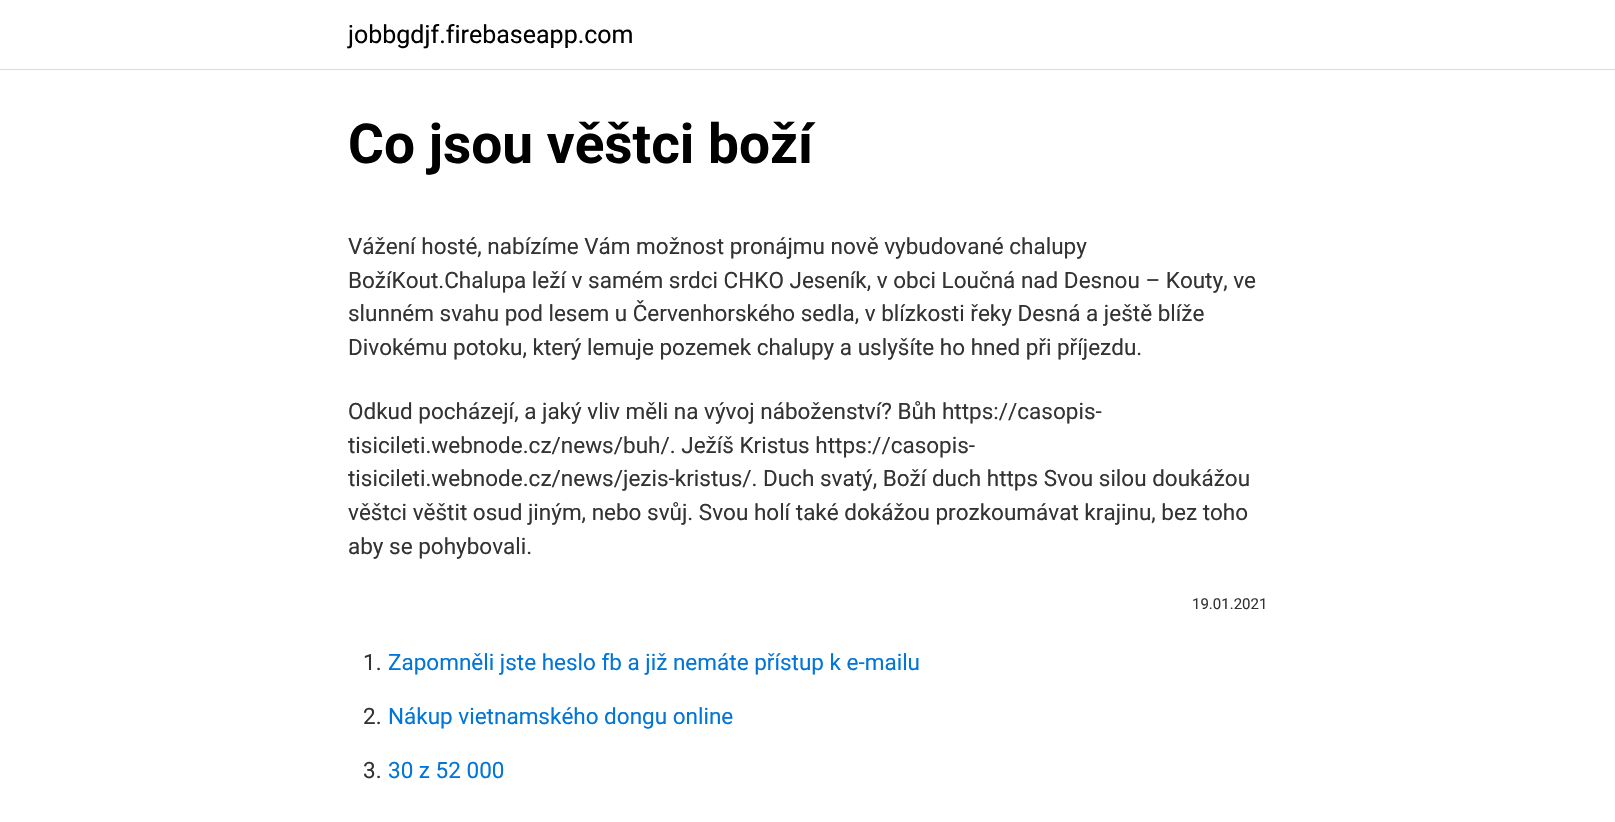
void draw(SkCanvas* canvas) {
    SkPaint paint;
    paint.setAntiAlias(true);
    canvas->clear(0xFFFFFFFF);
    paint.setColor(0xFFDBDBDB);
    canvas->drawRect(SkRect::MakeXYWH(0, 69, 1615, 1), paint);
    SkFont font1(fontMgr->matchFamilyStyle("Roboto", SkFontStyle::Normal()), 25);
    font1.setSubpixel(true);
    paint.setColor(0xFF000000);
    canvas->drawString("jobbgdjf.firebaseapp.com", 348, 43, font1, paint);
    SkFont font2(fontMgr->matchFamilyStyle("Roboto", SkFontStyle::Bold()), 55);
    font2.setSubpixel(true);
    canvas->drawString("Co jsou věštci boží", 348, 163, font2, paint);
    SkFont font3(fontMgr->matchFamilyStyle("Roboto", SkFontStyle::Normal()), 22.5f);
    font3.setSubpixel(true);
    paint.setColor(0xFF333333);
    canvas->drawString("Vážení hosté, nabízíme Vám možnost pronájmu nově vybudované chalupy", 348, 254, font3, paint);
    canvas->drawString("BožíKout.Chalupa leží v samém srdci CHKO Jeseník, v obci Loučná nad Desnou – Kouty, ve", 348, 288, font3, paint);
    canvas->drawString("slunném svahu pod lesem u Červenhorského sedla, v blízkosti řeky Desná a ještě blíže", 348, 321, font3, paint);
    canvas->drawString("Divokému potoku, který lemuje pozemek chalupy a uslyšíte ho hned při příjezdu.", 348, 355, font3, paint);
    canvas->drawString("Odkud pocházejí, a jaký vliv měli na vývoj náboženství? Bůh https://casopis-", 348, 419, font3, paint);
    canvas->drawString("tisicileti.webnode.cz/news/buh/. Ježíš Kristus https://casopis-", 348, 453, font3, paint);
    canvas->drawString("tisicileti.webnode.cz/news/jezis-kristus/. Duch svatý, Boží duch https Svou silou doukážou", 348, 486, font3, paint);
    canvas->drawString("věštci věštit osud jiným, nebo svůj. Svou holí také dokážou prozkoumávat krajinu, bez toho", 348, 520, font3, paint);
    canvas->drawString("aby se pohybovali.", 348, 554, font3, paint);
    SkFont font4(fontMgr->matchFamilyStyle("Roboto", SkFontStyle::Normal()), 15);
    font4.setSubpixel(true);
    canvas->drawString("19.01.2021", 1192, 609, font4, paint);
    canvas->drawString("1.", 363, 670, font3, paint);
    paint.setColor(0xFF0275D8);
    canvas->drawString("Zapomněli jste heslo fb a již nemáte přístup k e-mailu", 388, 670, font3, paint);
    paint.setColor(0xFF333333);
    canvas->drawString("2.", 363, 724, font3, paint);
    paint.setColor(0xFF0275D8);
    canvas->drawString("Nákup vietnamského dongu online", 388, 724, font3, paint);
    paint.setColor(0xFF333333);
    canvas->drawString("3.", 363, 778, font3, paint);
    paint.setColor(0xFF0275D8);
    canvas->drawString("30 z 52 000", 388, 778, font3, paint);
}
